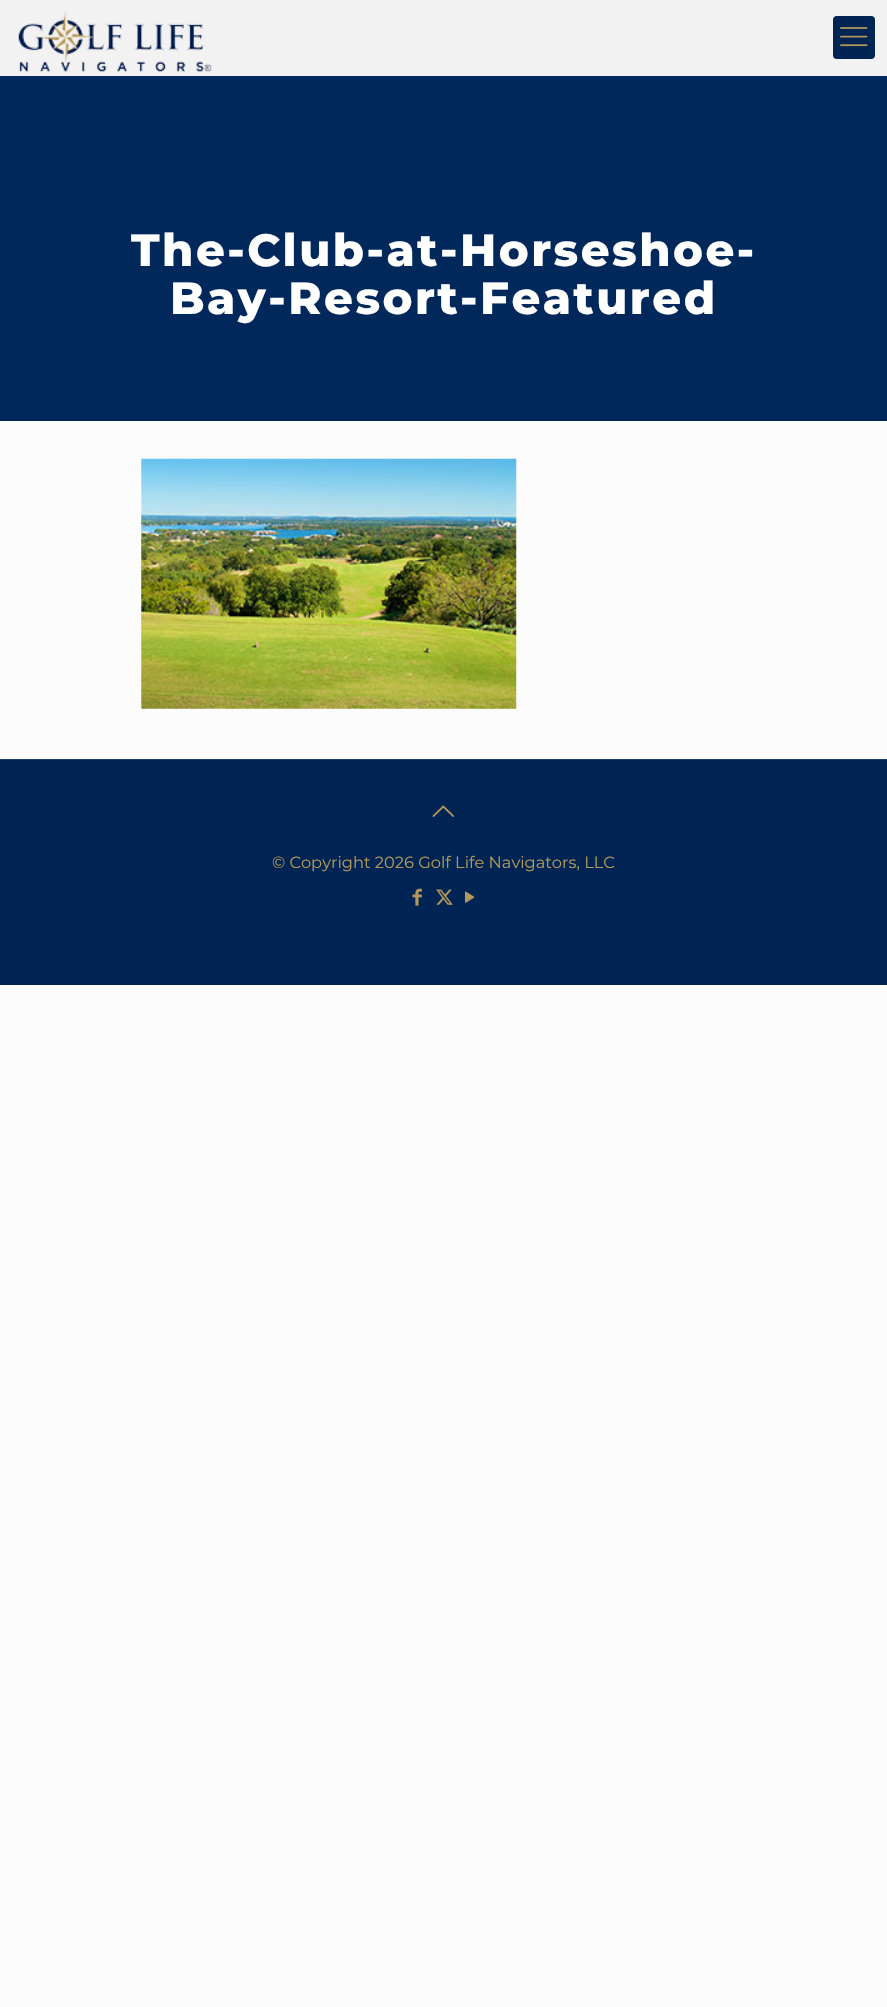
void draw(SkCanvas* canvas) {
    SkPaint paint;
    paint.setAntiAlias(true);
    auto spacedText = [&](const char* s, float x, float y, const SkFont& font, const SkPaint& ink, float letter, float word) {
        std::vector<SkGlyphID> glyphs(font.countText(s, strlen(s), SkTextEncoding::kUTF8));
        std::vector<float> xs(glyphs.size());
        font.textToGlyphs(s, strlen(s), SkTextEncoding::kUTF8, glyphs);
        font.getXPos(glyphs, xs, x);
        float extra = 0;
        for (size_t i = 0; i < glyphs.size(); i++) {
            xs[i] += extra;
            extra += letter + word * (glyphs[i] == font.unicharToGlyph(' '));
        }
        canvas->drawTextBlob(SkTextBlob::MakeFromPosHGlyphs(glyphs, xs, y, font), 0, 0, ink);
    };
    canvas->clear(0xFFFCFCFC);
    paint.setColor(0xFFF2F2F2);
    canvas->drawRect(SkRect::MakeXYWH(0, 0, 887, 76), paint);
    canvas->drawImageRect(SkImages::DeferredFromEncodedData(SkData::MakeFromFileName("img1.png")), SkRect::MakeXYWH(18, 10, 194, 62), SkSamplingOptions());
    paint.setColor(0xFF002554);
    canvas->drawRoundRect(SkRect::MakeXYWH(833, 16, 42, 43), 4, 4, paint);
    canvas->drawImageRect(SkImages::DeferredFromEncodedData(SkData::MakeFromFileName("img2.png")), SkRect::MakeXYWH(840, 27, 28, 20), SkSamplingOptions());
    paint.setColor(0xFF00285B);
    canvas->drawRect(SkRect::MakeXYWH(0, 76, 887, 345), paint);
    SkFont font1(fontMgr->matchFamilyStyle("Montserrat", SkFontStyle(800, SkFontStyle::kNormal_Width, SkFontStyle::kUpright_Slant)), 45);
    font1.setSubpixel(true);
    paint.setColor(0xFFFFFFFF);
    spacedText("The-Club-at-Horseshoe-", 131, 266, font1, paint, 2.5f, 0);
    spacedText("Bay-Resort-Featured", 170, 314, font1, paint, 2.5f, 0);
    canvas->drawImageRect(SkImages::DeferredFromEncodedData(SkData::MakeFromFileName("img3.png")), SkRect::MakeXYWH(141, 458, 376, 251), SkSamplingOptions());
    paint.setColor(0xFF002554);
    canvas->drawRect(SkRect::MakeXYWH(0, 760, 887, 225), paint);
    paint.setColor(0xFF1A3B65);
    canvas->drawRect(SkRect::MakeXYWH(0, 759, 887, 1), paint);
    canvas->drawImageRect(SkImages::DeferredFromEncodedData(SkData::MakeFromFileName("img4.png")), SkRect::MakeXYWH(432, 805, 22, 12), SkSamplingOptions());
    SkFont font2(fontMgr->matchFamilyStyle("Montserrat", SkFontStyle::Normal()), 16.25f);
    font2.setSubpixel(true);
    paint.setColor(0xFFB5985A);
    canvas->drawString("© Copyright 2026 Golf Life Navigators, LLC", 272, 868, font2, paint);
    canvas->drawImageRect(SkImages::DeferredFromEncodedData(SkData::MakeFromFileName("img5.png")), SkRect::MakeXYWH(412, 888, 10, 18), SkSamplingOptions());
    canvas->drawImageRect(SkImages::DeferredFromEncodedData(SkData::MakeFromFileName("img6.png")), SkRect::MakeXYWH(436, 889, 17, 16), SkSamplingOptions());
    canvas->drawImageRect(SkImages::DeferredFromEncodedData(SkData::MakeFromFileName("img7.png")), SkRect::MakeXYWH(465, 891, 10, 12), SkSamplingOptions());
}
